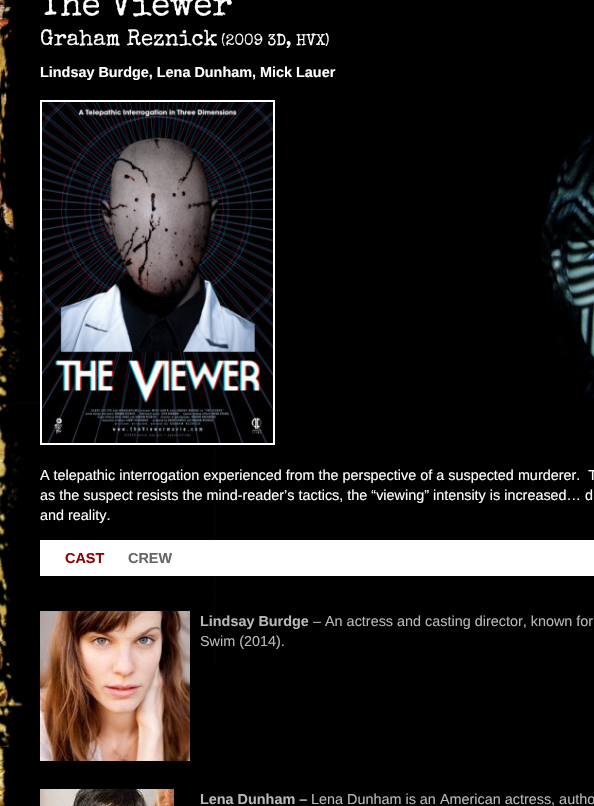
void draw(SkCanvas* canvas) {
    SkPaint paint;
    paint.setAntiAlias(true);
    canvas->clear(0xFFFFFFFF);
    canvas->drawImageRect(SkImages::DeferredFromEncodedData(SkData::MakeFromFileName("img1.png")), SkRect::MakeXYWH(0, 0, 216, 806), SkSamplingOptions());
    canvas->drawImageRect(SkImages::DeferredFromEncodedData(SkData::MakeFromFileName("img2.png")), SkRect::MakeXYWH(0, 0, 594, 806), SkSamplingOptions());
    SkFont font1(fontMgr->matchFamilyStyle("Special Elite", SkFontStyle::Normal()), 34.5f);
    font1.setSubpixel(true);
    paint.setColor(0xFFFFFFFF);
    canvas->drawString("The Viewer", 40, 15, font1, paint);
    SkFont font2(fontMgr->matchFamilyStyle("Special Elite", SkFontStyle::Normal()), 22.25f);
    font2.setSubpixel(true);
    canvas->drawString("Graham Reznick", 40, 45, font2, paint);
    SkFont font3(fontMgr->matchFamilyStyle("Special Elite", SkFontStyle::Normal()), 15.75f);
    font3.setSubpixel(true);
    canvas->drawString("(2009 3D, HVX)", 221, 45, font3, paint);
    SkFont font4(fontMgr->matchFamilyStyle("Liberation Sans", SkFontStyle::Bold()), 14.4f);
    font4.setSubpixel(true);
    canvas->drawString("Lindsay Burdge, Lena Dunham, Mick Lauer", 40, 77, font4, paint);
    paint.setStyle(SkPaint::kStroke_Style);
    paint.setStrokeWidth(2);
    canvas->drawRect(SkRect::MakeXYWH(41, 101, 233, 343), paint);
    canvas->drawImageRect(SkImages::DeferredFromEncodedData(SkData::MakeFromFileName("img3.png")), SkRect::MakeXYWH(42, 102, 231, 341), SkSamplingOptions());
    canvas->drawImageRect(SkImages::DeferredFromEncodedData(SkData::MakeFromFileName("img4.png")), SkRect::MakeXYWH(541, 132, 53, 268), SkSamplingOptions());
    SkFont font5(fontMgr->matchFamilyStyle("Liberation Sans", SkFontStyle::Normal()), 14.4f);
    font5.setSubpixel(true);
    paint.setStyle(SkPaint::kFill_Style);
    canvas->drawString("A telepathic interrogation experienced from the perspective of a suspected murderer.  T", 40, 480, font5, paint);
    canvas->drawString("as the suspect resists the mind-reader’s tactics, the “viewing” intensity is increased… d", 40, 500, font5, paint);
    canvas->drawString("and reality.", 40, 520, font5, paint);
    canvas->drawRect(SkRect::MakeXYWH(40, 540, 554, 36), paint);
    paint.setColor(0xFF940000);
    canvas->drawString("CAST", 65, 563, font4, paint);
    paint.setColor(0xFF666666);
    canvas->drawString("CREW", 128, 563, font4, paint);
    canvas->drawImageRect(SkImages::DeferredFromEncodedData(SkData::MakeFromFileName("img5.png")), SkRect::MakeXYWH(40, 611, 150, 150), SkSamplingOptions());
    paint.setColor(0xFFB8B8B8);
    canvas->drawString("Lindsay Burdge", 200, 626, font4, paint);
    canvas->drawString("– An actress and casting director, known for", 313, 626, font5, paint);
    canvas->drawString("Swim (2014).", 200, 646, font5, paint);
    canvas->drawImageRect(SkImages::DeferredFromEncodedData(SkData::MakeFromFileName("img6.png")), SkRect::MakeXYWH(40, 789, 134, 17), SkSamplingOptions());
    canvas->drawString("Lena Dunham –", 200, 804, font4, paint);
    canvas->drawString("Lena Dunham is an American actress, autho", 311, 804, font5, paint);
}
